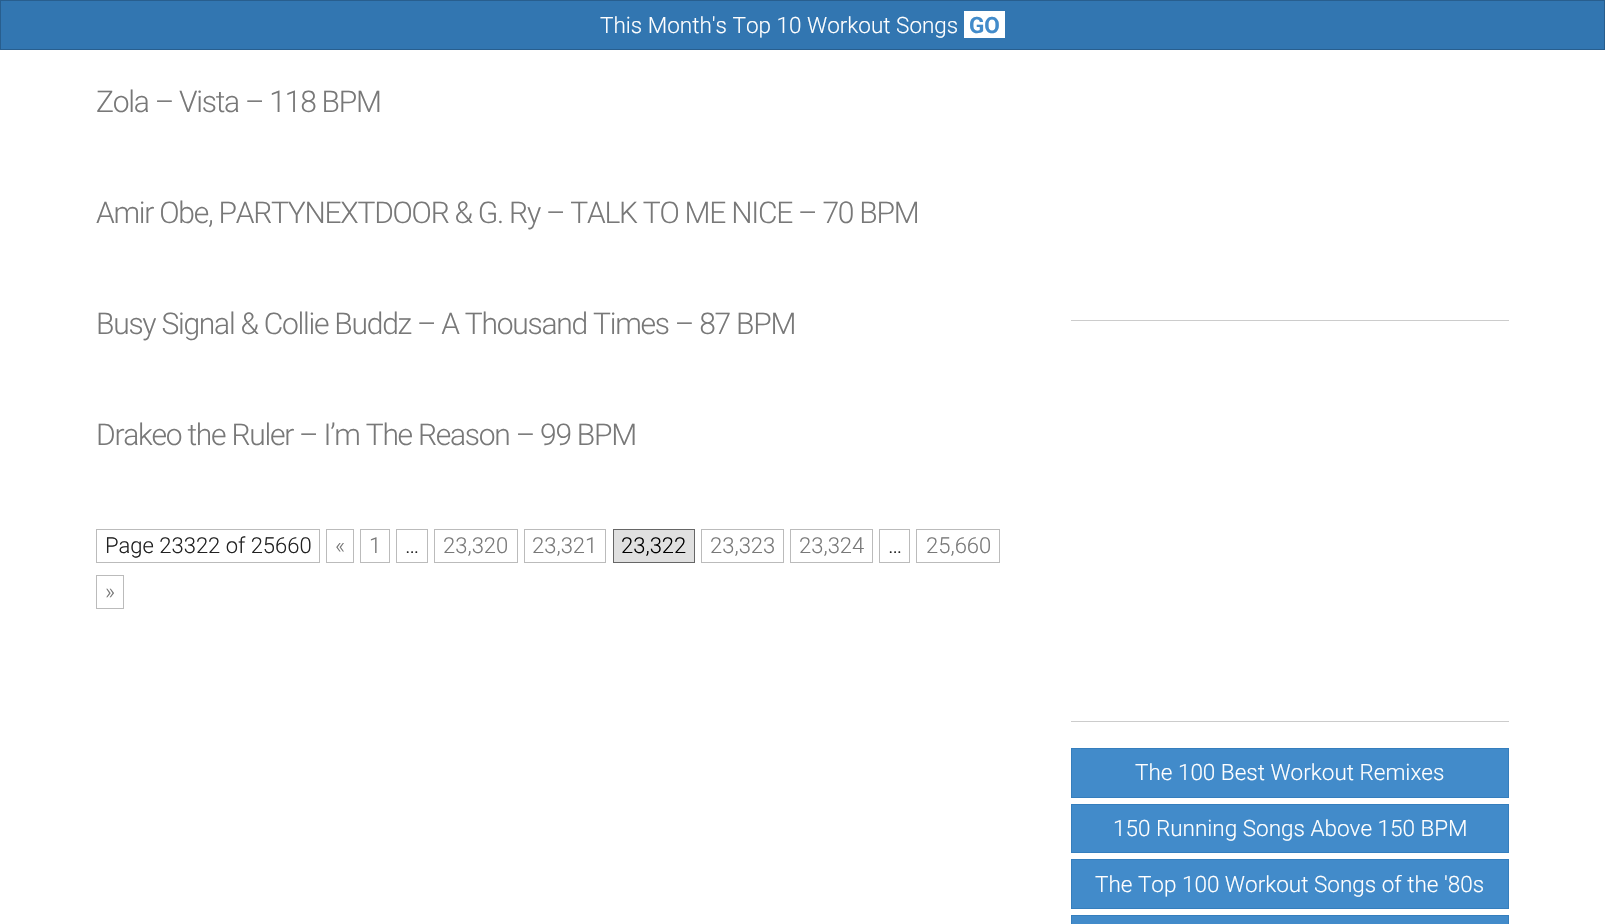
void draw(SkCanvas* canvas) {
    SkPaint paint;
    paint.setAntiAlias(true);
    auto spacedText = [&](const char* s, float x, float y, const SkFont& font, const SkPaint& ink, float letter, float word) {
        std::vector<SkGlyphID> glyphs(font.countText(s, strlen(s), SkTextEncoding::kUTF8));
        std::vector<float> xs(glyphs.size());
        font.textToGlyphs(s, strlen(s), SkTextEncoding::kUTF8, glyphs);
        font.getXPos(glyphs, xs, x);
        float extra = 0;
        for (size_t i = 0; i < glyphs.size(); i++) {
            xs[i] += extra;
            extra += letter + word * (glyphs[i] == font.unicharToGlyph(' '));
        }
        canvas->drawTextBlob(SkTextBlob::MakeFromPosHGlyphs(glyphs, xs, y, font), 0, 0, ink);
    };
    canvas->clear(0xFFFFFFFF);
    paint.setColor(0xFF3276B1);
    canvas->drawRect(SkRect::MakeXYWH(0.5f, 0.5f, 1604, 49), paint);
    paint.setStyle(SkPaint::kStroke_Style);
    paint.setStrokeWidth(1);
    paint.setColor(0xFF285E8E);
    canvas->drawRect(SkRect::MakeXYWH(0.5f, 0.5f, 1604, 49), paint);
    SkFont font1(fontMgr->matchFamilyStyle("Roboto", SkFontStyle(300, SkFontStyle::kNormal_Width, SkFontStyle::kUpright_Slant)), 22.5f);
    font1.setSubpixel(true);
    paint.setStyle(SkPaint::kFill_Style);
    paint.setColor(0xFFFFFFFF);
    canvas->drawString("This Month's Top 10 Workout Songs", 600, 33, font1, paint);
    canvas->drawRect(SkRect::MakeXYWH(964, 11, 41, 27), paint);
    SkFont font2(fontMgr->matchFamilyStyle("Roboto", SkFontStyle::Bold()), 22.5f);
    font2.setSubpixel(true);
    paint.setColor(0xFF428BCA);
    canvas->drawString("GO", 969, 33, font2, paint);
    SkFont font3(fontMgr->matchFamilyStyle("Roboto", SkFontStyle(300, SkFontStyle::kNormal_Width, SkFontStyle::kUpright_Slant)), 30);
    font3.setSubpixel(true);
    paint.setColor(0xFF787878);
    spacedText("Zola – Vista – 118 BPM", 96, 112, font3, paint, -1.25f, 0);
    spacedText("Amir Obe, PARTYNEXTDOOR & G. Ry – TALK TO ME NICE – 70 BPM", 96, 223, font3, paint, -1.25f, 0);
    spacedText("Busy Signal & Collie Buddz – A Thousand Times – 87 BPM", 96, 334, font3, paint, -1.25f, 0);
    spacedText("Drakeo the Ruler – I’m The Reason – 99 BPM", 96, 445, font3, paint, -1.25f, 0);
    paint.setStyle(SkPaint::kStroke_Style);
    paint.setColor(0xFFBBBBBB);
    canvas->drawRect(SkRect::MakeXYWH(96.5f, 529.5f, 223, 33), paint);
    SkFont font4(fontMgr->matchFamilyStyle("Roboto", SkFontStyle(300, SkFontStyle::kNormal_Width, SkFontStyle::kUpright_Slant)), 22);
    font4.setSubpixel(true);
    paint.setStyle(SkPaint::kFill_Style);
    paint.setColor(0xFF222222);
    canvas->drawString("Page 23322 of 25660", 105, 553, font4, paint);
    paint.setStyle(SkPaint::kStroke_Style);
    paint.setColor(0xFFBBBBBB);
    canvas->drawRect(SkRect::MakeXYWH(326.5f, 529.5f, 27, 33), paint);
    paint.setStyle(SkPaint::kFill_Style);
    paint.setColor(0xFF787878);
    canvas->drawString("«", 335, 553, font4, paint);
    paint.setStyle(SkPaint::kStroke_Style);
    paint.setColor(0xFFBBBBBB);
    canvas->drawRect(SkRect::MakeXYWH(360.5f, 529.5f, 29, 33), paint);
    paint.setStyle(SkPaint::kFill_Style);
    paint.setColor(0xFF787878);
    canvas->drawString("1", 369, 553, font4, paint);
    paint.setStyle(SkPaint::kStroke_Style);
    paint.setColor(0xFFBBBBBB);
    canvas->drawRect(SkRect::MakeXYWH(434.5f, 529.5f, 83, 33), paint);
    paint.setStyle(SkPaint::kFill_Style);
    paint.setColor(0xFF787878);
    canvas->drawString("23,320", 443, 553, font4, paint);
    paint.setStyle(SkPaint::kStroke_Style);
    paint.setColor(0xFFBBBBBB);
    canvas->drawRect(SkRect::MakeXYWH(524.5f, 529.5f, 81, 33), paint);
    paint.setStyle(SkPaint::kFill_Style);
    paint.setColor(0xFF787878);
    canvas->drawString("23,321", 532, 553, font4, paint);
    paint.setColor(0xFFE0E0E0);
    canvas->drawRect(SkRect::MakeXYWH(613.5f, 529.5f, 81, 33), paint);
    paint.setStyle(SkPaint::kStroke_Style);
    paint.setColor(0xFF666666);
    canvas->drawRect(SkRect::MakeXYWH(613.5f, 529.5f, 81, 33), paint);
    paint.setStyle(SkPaint::kFill_Style);
    paint.setColor(0xFF000000);
    canvas->drawString("23,322", 621, 553, font4, paint);
    paint.setStyle(SkPaint::kStroke_Style);
    paint.setColor(0xFFBBBBBB);
    canvas->drawRect(SkRect::MakeXYWH(701.5f, 529.5f, 82, 33), paint);
    paint.setStyle(SkPaint::kFill_Style);
    paint.setColor(0xFF787878);
    canvas->drawString("23,323", 710, 553, font4, paint);
    paint.setStyle(SkPaint::kStroke_Style);
    paint.setColor(0xFFBBBBBB);
    canvas->drawRect(SkRect::MakeXYWH(790.5f, 529.5f, 82, 33), paint);
    paint.setStyle(SkPaint::kFill_Style);
    paint.setColor(0xFF787878);
    canvas->drawString("23,324", 799, 553, font4, paint);
    paint.setStyle(SkPaint::kStroke_Style);
    paint.setColor(0xFFBBBBBB);
    canvas->drawRect(SkRect::MakeXYWH(916.5f, 529.5f, 83, 33), paint);
    paint.setStyle(SkPaint::kFill_Style);
    paint.setColor(0xFF787878);
    canvas->drawString("25,660", 926, 553, font4, paint);
    paint.setStyle(SkPaint::kStroke_Style);
    paint.setColor(0xFFBBBBBB);
    canvas->drawRect(SkRect::MakeXYWH(396.5f, 529.5f, 31, 33), paint);
    paint.setStyle(SkPaint::kFill_Style);
    paint.setColor(0xFF222222);
    canvas->drawString("…", 405, 553, font4, paint);
    paint.setStyle(SkPaint::kStroke_Style);
    paint.setColor(0xFFBBBBBB);
    canvas->drawRect(SkRect::MakeXYWH(879.5f, 529.5f, 30, 33), paint);
    paint.setStyle(SkPaint::kFill_Style);
    paint.setColor(0xFF222222);
    canvas->drawString("…", 888, 553, font4, paint);
    paint.setStyle(SkPaint::kStroke_Style);
    paint.setColor(0xFFBBBBBB);
    canvas->drawRect(SkRect::MakeXYWH(96.5f, 575.5f, 27, 33), paint);
    paint.setStyle(SkPaint::kFill_Style);
    paint.setColor(0xFF787878);
    canvas->drawString("»", 105, 599, font4, paint);
    paint.setColor(0xFFCCCCCC);
    canvas->drawRect(SkRect::MakeXYWH(1071, 320, 438, 1), paint);
    canvas->drawRect(SkRect::MakeXYWH(1071, 721, 438, 1), paint);
    paint.setColor(0xFF428BCA);
    canvas->drawRect(SkRect::MakeXYWH(1071.5f, 748.5f, 437, 49), paint);
    paint.setStyle(SkPaint::kStroke_Style);
    paint.setColor(0xFF357EBD);
    canvas->drawRect(SkRect::MakeXYWH(1071.5f, 748.5f, 437, 49), paint);
    paint.setStyle(SkPaint::kFill_Style);
    paint.setColor(0xFFFFFFFF);
    canvas->drawString("The 100 Best Workout Remixes", 1135, 780, font1, paint);
    paint.setColor(0xFF428BCA);
    canvas->drawRect(SkRect::MakeXYWH(1071.5f, 804.5f, 437, 48), paint);
    paint.setStyle(SkPaint::kStroke_Style);
    paint.setColor(0xFF357EBD);
    canvas->drawRect(SkRect::MakeXYWH(1071.5f, 804.5f, 437, 48), paint);
    paint.setStyle(SkPaint::kFill_Style);
    paint.setColor(0xFFFFFFFF);
    canvas->drawString("150 Running Songs Above 150 BPM", 1113, 836, font1, paint);
    paint.setColor(0xFF428BCA);
    canvas->drawRect(SkRect::MakeXYWH(1071.5f, 859.5f, 437, 49), paint);
    paint.setStyle(SkPaint::kStroke_Style);
    paint.setColor(0xFF357EBD);
    canvas->drawRect(SkRect::MakeXYWH(1071.5f, 859.5f, 437, 49), paint);
    paint.setStyle(SkPaint::kFill_Style);
    paint.setColor(0xFFFFFFFF);
    canvas->drawString("The Top 100 Workout Songs of the '80s", 1095, 892, font1, paint);
    paint.setColor(0xFF428BCA);
    canvas->drawRect(SkRect::MakeXYWH(1071.5f, 915.5f, 437, 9), paint);
    paint.setStyle(SkPaint::kStroke_Style);
    paint.setColor(0xFF357EBD);
    canvas->drawRect(SkRect::MakeXYWH(1071.5f, 915.5f, 437, 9), paint);
}
